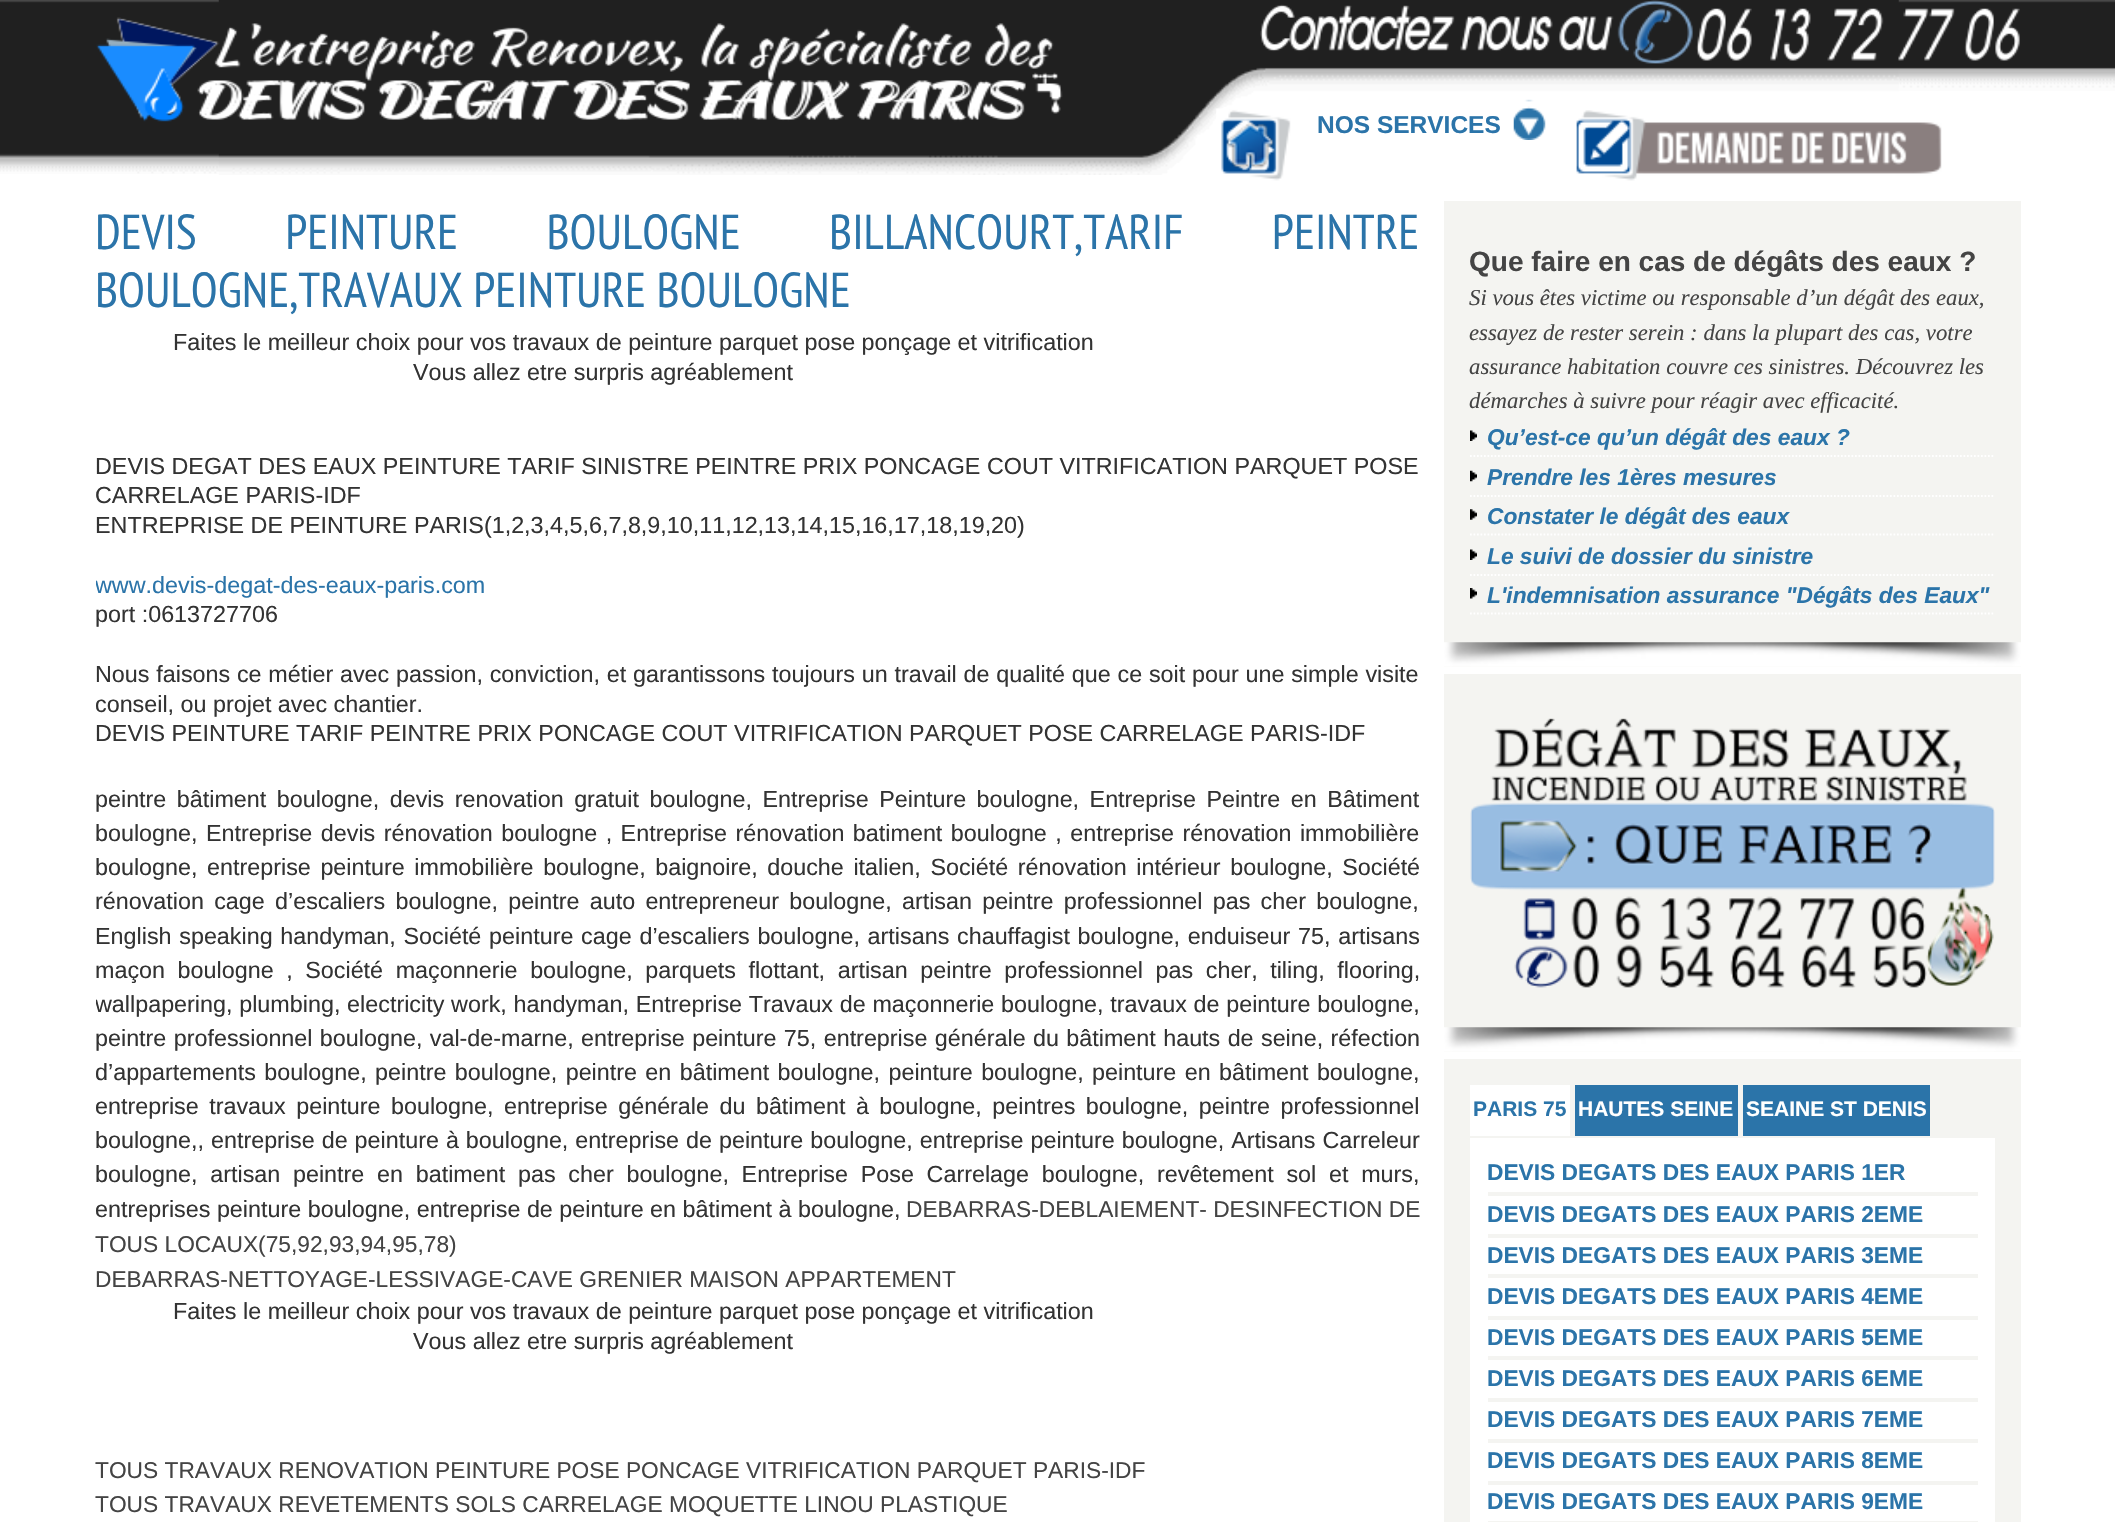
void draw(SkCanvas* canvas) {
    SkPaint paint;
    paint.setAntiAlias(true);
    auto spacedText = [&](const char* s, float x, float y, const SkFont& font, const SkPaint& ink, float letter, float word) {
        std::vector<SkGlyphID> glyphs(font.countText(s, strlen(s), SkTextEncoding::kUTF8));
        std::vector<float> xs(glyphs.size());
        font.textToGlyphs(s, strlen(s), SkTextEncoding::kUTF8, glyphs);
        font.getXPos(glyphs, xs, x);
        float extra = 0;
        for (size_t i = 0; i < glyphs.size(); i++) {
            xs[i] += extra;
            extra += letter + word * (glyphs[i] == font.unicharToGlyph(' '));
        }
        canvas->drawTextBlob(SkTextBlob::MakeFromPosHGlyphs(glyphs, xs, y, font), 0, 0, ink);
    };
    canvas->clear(0xFFFFFFFF);
    canvas->drawImageRect(SkImages::DeferredFromEncodedData(SkData::MakeFromFileName("img1.png")), SkRect::MakeXYWH(0, 0, 2115, 174), SkSamplingOptions());
    canvas->drawImageRect(SkImages::DeferredFromEncodedData(SkData::MakeFromFileName("img2.png")), SkRect::MakeXYWH(218, 0, 1681, 175), SkSamplingOptions());
    canvas->drawImageRect(SkImages::DeferredFromEncodedData(SkData::MakeFromFileName("img3.png")), SkRect::MakeXYWH(96, 17, 967, 105), SkSamplingOptions());
    canvas->drawImageRect(SkImages::DeferredFromEncodedData(SkData::MakeFromFileName("img4.png")), SkRect::MakeXYWH(1260, 0, 760, 64), SkSamplingOptions());
    canvas->drawImageRect(SkImages::DeferredFromEncodedData(SkData::MakeFromFileName("img5.png")), SkRect::MakeXYWH(1216, 108, 75, 73), SkSamplingOptions());
    SkFont font1(fontMgr->matchFamilyStyle("Liberation Sans", SkFontStyle::Bold()), 24.5f);
    font1.setSubpixel(true);
    paint.setColor(0xFF2B74A9);
    canvas->drawString("NOS SERVICES", 1317, 133, font1, paint);
    canvas->drawImageRect(SkImages::DeferredFromEncodedData(SkData::MakeFromFileName("img6.png")), SkRect::MakeXYWH(1513, 99, 33, 41), SkSamplingOptions());
    canvas->drawImageRect(SkImages::DeferredFromEncodedData(SkData::MakeFromFileName("img7.png")), SkRect::MakeXYWH(1576, 110, 366, 71), SkSamplingOptions());
    SkFont font2(fontMgr->matchFamilyStyle("PT Sans Narrow", SkFontStyle::Normal()), 49);
    font2.setSubpixel(true);
    spacedText("DEVIS PEINTURE BOULOGNE BILLANCOURT,TARIF PEINTRE", 95, 249, font2, paint, 0, 78);
    canvas->drawString("BOULOGNE,TRAVAUX PEINTURE BOULOGNE", 95, 307, font2, paint);
    SkFont font3(fontMgr->matchFamilyStyle("Liberation Sans", SkFontStyle::Normal()), 23.33f);
    font3.setSubpixel(true);
    paint.setColor(0xFF333333);
    canvas->drawString("Faites le meilleur choix pour vos travaux de peinture parquet pose ponçage et vitrification", 173, 350, font3, paint);
    canvas->drawString("Vous allez etre surpris agréablement", 413, 380, font3, paint);
    canvas->drawString("DEVIS DEGAT DES EAUX PEINTURE TARIF SINISTRE PEINTRE PRIX PONCAGE COUT VITRIFICATION PARQUET POSE", 95, 474, font3, paint);
    canvas->drawString("CARRELAGE PARIS-IDF", 95, 503, font3, paint);
    canvas->drawString("ENTREPRISE DE PEINTURE PARIS(1,2,3,4,5,6,7,8,9,10,11,12,13,14,15,16,17,18,19,20)", 95, 533, font3, paint);
    canvas->save();
    canvas->clipRect(SkRect::MakeXYWH(96, 201, 1325, 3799));
    paint.setColor(0xFF2B74A9);
    canvas->drawString("www.devis-degat-des-eaux-paris.com", 95, 593, font3, paint);
    canvas->restore();
    paint.setColor(0xFF333333);
    canvas->drawString("port :0613727706", 95, 622, font3, paint);
    spacedText("Nous faisons ce métier avec passion, conviction, et garantissons toujours un travail de qualité que ce soit pour une simple visite", 95, 682, font3, paint, 0, 0.3f);
    canvas->drawString("conseil, ou projet avec chantier.", 95, 712, font3, paint);
    canvas->drawString("DEVIS PEINTURE TARIF PEINTRE PRIX PONCAGE COUT VITRIFICATION PARQUET POSE CARRELAGE PARIS-IDF", 95, 741, font3, paint);
    spacedText("peintre bâtiment boulogne, devis renovation gratuit boulogne, Entreprise Peinture boulogne, Entreprise Peintre en Bâtiment", 95, 807, font3, paint, 0, 4);
    spacedText("boulogne, Entreprise devis rénovation boulogne , Entreprise rénovation batiment boulogne , entreprise rénovation immobilière", 95, 841, font3, paint, 0, 2);
    spacedText("boulogne, entreprise peinture immobilière boulogne, baignoire, douche italien, Société rénovation intérieur boulogne, Société", 95, 875, font3, paint, 0, 3.1f);
    spacedText("rénovation cage d’escaliers boulogne, peintre auto entrepreneur boulogne, artisan peintre professionnel pas cher boulogne,", 95, 909, font3, paint, 0, 3.75f);
    spacedText("English speaking handyman, Société peinture cage d’escaliers boulogne, artisans chauffagist boulogne, enduiseur 75, artisans", 95, 944, font3, paint, 0, 1.25f);
    spacedText("maçon boulogne , Société maçonnerie boulogne, parquets flottant, artisan peintre professionnel pas cher, tiling, flooring,", 95, 978, font3, paint, 0, 6.1f);
    canvas->save();
    canvas->clipRect(SkRect::MakeXYWH(96, 201, 1325, 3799));
    spacedText("wallpapering, plumbing, electricity work, handyman, Entreprise Travaux de maçonnerie boulogne, travaux de peinture boulogne,", 95, 1012, font3, paint, 0, 0.25f);
    canvas->restore();
    spacedText("peintre professionnel boulogne, val-de-marne, entreprise peinture 75, entreprise générale du bâtiment hauts de seine, réfection", 95, 1046, font3, paint, 0, 0.9f);
    spacedText("d’appartements boulogne, peintre boulogne, peintre en bâtiment boulogne, peinture boulogne, peinture en bâtiment boulogne,", 95, 1080, font3, paint, 0, 1.9f);
    spacedText("entreprise travaux peinture boulogne, entreprise générale du bâtiment à boulogne, peintres boulogne, peintre professionnel", 95, 1114, font3, paint, 0, 4);
    spacedText("boulogne,, entreprise de peinture à boulogne, entreprise de peinture boulogne, entreprise peinture boulogne, Artisans Carreleur", 95, 1148, font3, paint, 0, 0.5f);
    spacedText("boulogne, artisan peintre en batiment pas cher boulogne, Entreprise Pose Carrelage boulogne, revêtement sol et murs,", 95, 1182, font3, paint, 0, 6.25f);
    canvas->drawString("entreprises peinture boulogne, entreprise de peinture en bâtiment à boulogne,", 95, 1217, font3, paint);
    SkFont font4(fontMgr->matchFamilyStyle("Liberation Sans", SkFontStyle::Normal()), 22.75f);
    font4.setSubpixel(true);
    paint.setColor(0xFF444444);
    canvas->drawString("DEBARRAS-DEBLAIEMENT- DESINFECTION DE", 906, 1217, font4, paint);
    canvas->drawString("TOUS LOCAUX(75,92,93,94,95,78)", 95, 1252, font4, paint);
    canvas->drawString("DEBARRAS-NETTOYAGE-LESSIVAGE-CAVE GRENIER MAISON APPARTEMENT", 95, 1287, font4, paint);
    paint.setColor(0xFF333333);
    canvas->drawString("Faites le meilleur choix pour vos travaux de peinture parquet pose ponçage et vitrification", 173, 1319, font3, paint);
    canvas->drawString("Vous allez etre surpris agréablement", 413, 1349, font3, paint);
    paint.setColor(0xFF444444);
    canvas->drawString("TOUS TRAVAUX RENOVATION PEINTURE POSE PONCAGE VITRIFICATION PARQUET PARIS-IDF", 95, 1478, font4, paint);
    canvas->drawString("TOUS TRAVAUX REVETEMENTS SOLS CARRELAGE MOQUETTE LINOU PLASTIQUE", 95, 1512, font4, paint);
    paint.setColor(0xFFF4F4F1);
    canvas->drawRect(SkRect::MakeXYWH(1444, 201, 577, 466), paint);
    canvas->drawImageRect(SkImages::DeferredFromEncodedData(SkData::MakeFromFileName("img8.png")), SkRect::MakeXYWH(1444, 642, 577, 25), SkSamplingOptions());
    SkFont font5(fontMgr->matchFamilyStyle("Liberation Sans", SkFontStyle::Bold()), 28);
    font5.setSubpixel(true);
    paint.setColor(0xFF444444);
    canvas->drawString("Que faire en cas de dégâts des eaux ?", 1469, 271, font5, paint);
    SkFont font6(fontMgr->matchFamilyStyle("Liberation Serif", SkFontStyle::Italic()), 22.75f);
    font6.setSubpixel(true);
    canvas->drawString("Si vous êtes victime ou responsable d’un dégât des eaux,", 1469, 305, font6, paint);
    canvas->drawString("essayez de rester serein : dans la plupart des cas, votre", 1469, 340, font6, paint);
    canvas->drawString("assurance habitation couvre ces sinistres. Découvrez les", 1469, 374, font6, paint);
    canvas->drawString("démarches à suivre pour réagir avec efficacité.", 1469, 408, font6, paint);
    canvas->drawImageRect(SkImages::DeferredFromEncodedData(SkData::MakeFromFileName("img9.png")), SkRect::MakeXYWH(1470, 430, 7, 11), SkSamplingOptions());
    paint.setStyle(SkPaint::kStroke_Style);
    paint.setStrokeWidth(1.8f);
    paint.setColor(0xFFFFFFFF);
    paint.setPathEffect(SkDashPathEffect::Make({{1.75f, 1.75f}}, 0));
    canvas->drawPath(SkPathBuilder().moveTo(1470, 456).lineTo(1995, 456).detach(), paint);
    paint.setPathEffect(nullptr);
    SkFont font7(fontMgr->matchFamilyStyle("Liberation Sans", SkFontStyle::BoldItalic()), 22.75f);
    font7.setSubpixel(true);
    paint.setStyle(SkPaint::kFill_Style);
    paint.setColor(0xFF2B74A9);
    canvas->drawString("Qu’est-ce qu’un dégât des eaux ?", 1487, 445, font7, paint);
    canvas->drawImageRect(SkImages::DeferredFromEncodedData(SkData::MakeFromFileName("img10.png")), SkRect::MakeXYWH(1470, 470, 7, 12), SkSamplingOptions());
    paint.setStyle(SkPaint::kStroke_Style);
    paint.setColor(0xFFFFFFFF);
    paint.setPathEffect(SkDashPathEffect::Make({{1.75f, 1.75f}}, 0));
    canvas->drawPath(SkPathBuilder().moveTo(1470, 496).lineTo(1995, 496).detach(), paint);
    paint.setPathEffect(nullptr);
    paint.setStyle(SkPaint::kFill_Style);
    paint.setColor(0xFF2B74A9);
    canvas->drawString("Prendre les 1ères mesures", 1487, 485, font7, paint);
    canvas->drawImageRect(SkImages::DeferredFromEncodedData(SkData::MakeFromFileName("img11.png")), SkRect::MakeXYWH(1470, 509, 7, 11), SkSamplingOptions());
    paint.setStyle(SkPaint::kStroke_Style);
    paint.setColor(0xFFFFFFFF);
    paint.setPathEffect(SkDashPathEffect::Make({{1.75f, 1.75f}}, 0));
    canvas->drawPath(SkPathBuilder().moveTo(1470, 534.5f).lineTo(1995, 534.5f).detach(), paint);
    paint.setPathEffect(nullptr);
    paint.setStyle(SkPaint::kFill_Style);
    paint.setColor(0xFF2B74A9);
    canvas->drawString("Constater le dégât des eaux", 1487, 524, font7, paint);
    canvas->drawImageRect(SkImages::DeferredFromEncodedData(SkData::MakeFromFileName("img9.png")), SkRect::MakeXYWH(1470, 549, 7, 11), SkSamplingOptions());
    paint.setStyle(SkPaint::kStroke_Style);
    paint.setColor(0xFFFFFFFF);
    paint.setPathEffect(SkDashPathEffect::Make({{1.75f, 1.75f}}, 0));
    canvas->drawPath(SkPathBuilder().moveTo(1470, 575).lineTo(1995, 575).detach(), paint);
    paint.setPathEffect(nullptr);
    paint.setStyle(SkPaint::kFill_Style);
    paint.setColor(0xFF2B74A9);
    canvas->drawString("Le suivi de dossier du sinistre", 1487, 564, font7, paint);
    canvas->drawImageRect(SkImages::DeferredFromEncodedData(SkData::MakeFromFileName("img12.png")), SkRect::MakeXYWH(1470, 588, 7, 11), SkSamplingOptions());
    paint.setStyle(SkPaint::kStroke_Style);
    paint.setColor(0xFFFFFFFF);
    paint.setPathEffect(SkDashPathEffect::Make({{1.75f, 1.75f}}, 0));
    canvas->drawPath(SkPathBuilder().moveTo(1470, 613.5f).lineTo(1995, 613.5f).detach(), paint);
    paint.setPathEffect(nullptr);
    paint.setStyle(SkPaint::kFill_Style);
    paint.setColor(0xFF2B74A9);
    canvas->drawString("L'indemnisation assurance \"Dégâts des Eaux\"", 1487, 603, font7, paint);
    paint.setColor(0xFFF4F4F1);
    canvas->drawRect(SkRect::MakeXYWH(1444, 674, 577, 378), paint);
    canvas->drawImageRect(SkImages::DeferredFromEncodedData(SkData::MakeFromFileName("img8.png")), SkRect::MakeXYWH(1444, 1027, 577, 25), SkSamplingOptions());
    canvas->drawImageRect(SkImages::DeferredFromEncodedData(SkData::MakeFromFileName("img13.png")), SkRect::MakeXYWH(1470, 718, 525, 270), SkSamplingOptions());
    canvas->drawRect(SkRect::MakeXYWH(1444, 1059, 577, 463), paint);
    paint.setColor(0xFFFFFFFF);
    canvas->drawRect(SkRect::MakeXYWH(1470, 1085, 100, 51), paint);
    SkFont font8(fontMgr->matchFamilyStyle("Liberation Sans", SkFontStyle::Bold()), 21);
    font8.setSubpixel(true);
    paint.setColor(0xFF2B74A9);
    canvas->drawString("PARIS 75", 1473, 1116, font8, paint);
    canvas->drawRect(SkRect::MakeXYWH(1575, 1085, 163, 51), paint);
    paint.setColor(0xFFFFFFFF);
    canvas->drawString("HAUTES SEINE", 1578, 1116, font8, paint);
    paint.setColor(0xFF2B74A9);
    canvas->drawRect(SkRect::MakeXYWH(1743, 1085, 187, 51), paint);
    paint.setColor(0xFFFFFFFF);
    canvas->drawString("SEAINE ST DENIS", 1746, 1116, font8, paint);
    canvas->drawRect(SkRect::MakeXYWH(1470, 1138, 525, 384), paint);
    paint.setColor(0xFFF4F4F1);
    canvas->drawRect(SkRect::MakeXYWH(1488, 1192, 490, 4), paint);
    SkFont font9(fontMgr->matchFamilyStyle("Liberation Sans", SkFontStyle::Bold()), 22.75f);
    font9.setSubpixel(true);
    paint.setColor(0xFF2B74A9);
    canvas->drawString("DEVIS DEGATS DES EAUX PARIS 1ER", 1487, 1180, font9, paint);
    paint.setColor(0xFFF4F4F1);
    canvas->drawRect(SkRect::MakeXYWH(1488, 1234, 490, 4), paint);
    paint.setColor(0xFF2B74A9);
    canvas->drawString("DEVIS DEGATS DES EAUX PARIS 2EME", 1487, 1222, font9, paint);
    paint.setColor(0xFFF4F4F1);
    canvas->drawRect(SkRect::MakeXYWH(1488, 1274, 490, 4), paint);
    paint.setColor(0xFF2B74A9);
    canvas->drawString("DEVIS DEGATS DES EAUX PARIS 3EME", 1487, 1263, font9, paint);
    paint.setColor(0xFFF4F4F1);
    canvas->drawRect(SkRect::MakeXYWH(1488, 1316, 490, 4), paint);
    paint.setColor(0xFF2B74A9);
    canvas->drawString("DEVIS DEGATS DES EAUX PARIS 4EME", 1487, 1304, font9, paint);
    paint.setColor(0xFFF4F4F1);
    canvas->drawRect(SkRect::MakeXYWH(1488, 1356, 490, 4), paint);
    paint.setColor(0xFF2B74A9);
    canvas->drawString("DEVIS DEGATS DES EAUX PARIS 5EME", 1487, 1345, font9, paint);
    paint.setColor(0xFFF4F4F1);
    canvas->drawRect(SkRect::MakeXYWH(1488, 1398, 490, 4), paint);
    paint.setColor(0xFF2B74A9);
    canvas->drawString("DEVIS DEGATS DES EAUX PARIS 6EME", 1487, 1386, font9, paint);
    paint.setColor(0xFFF4F4F1);
    canvas->drawRect(SkRect::MakeXYWH(1488, 1439, 490, 4), paint);
    paint.setColor(0xFF2B74A9);
    canvas->drawString("DEVIS DEGATS DES EAUX PARIS 7EME", 1487, 1427, font9, paint);
    paint.setColor(0xFFF4F4F1);
    canvas->drawRect(SkRect::MakeXYWH(1488, 1481, 490, 4), paint);
    paint.setColor(0xFF2B74A9);
    canvas->drawString("DEVIS DEGATS DES EAUX PARIS 8EME", 1487, 1468, font9, paint);
    paint.setColor(0xFFF4F4F1);
    canvas->drawRect(SkRect::MakeXYWH(1488, 1521, 490, 1), paint);
    paint.setColor(0xFF2B74A9);
    canvas->drawString("DEVIS DEGATS DES EAUX PARIS 9EME", 1487, 1509, font9, paint);
}
